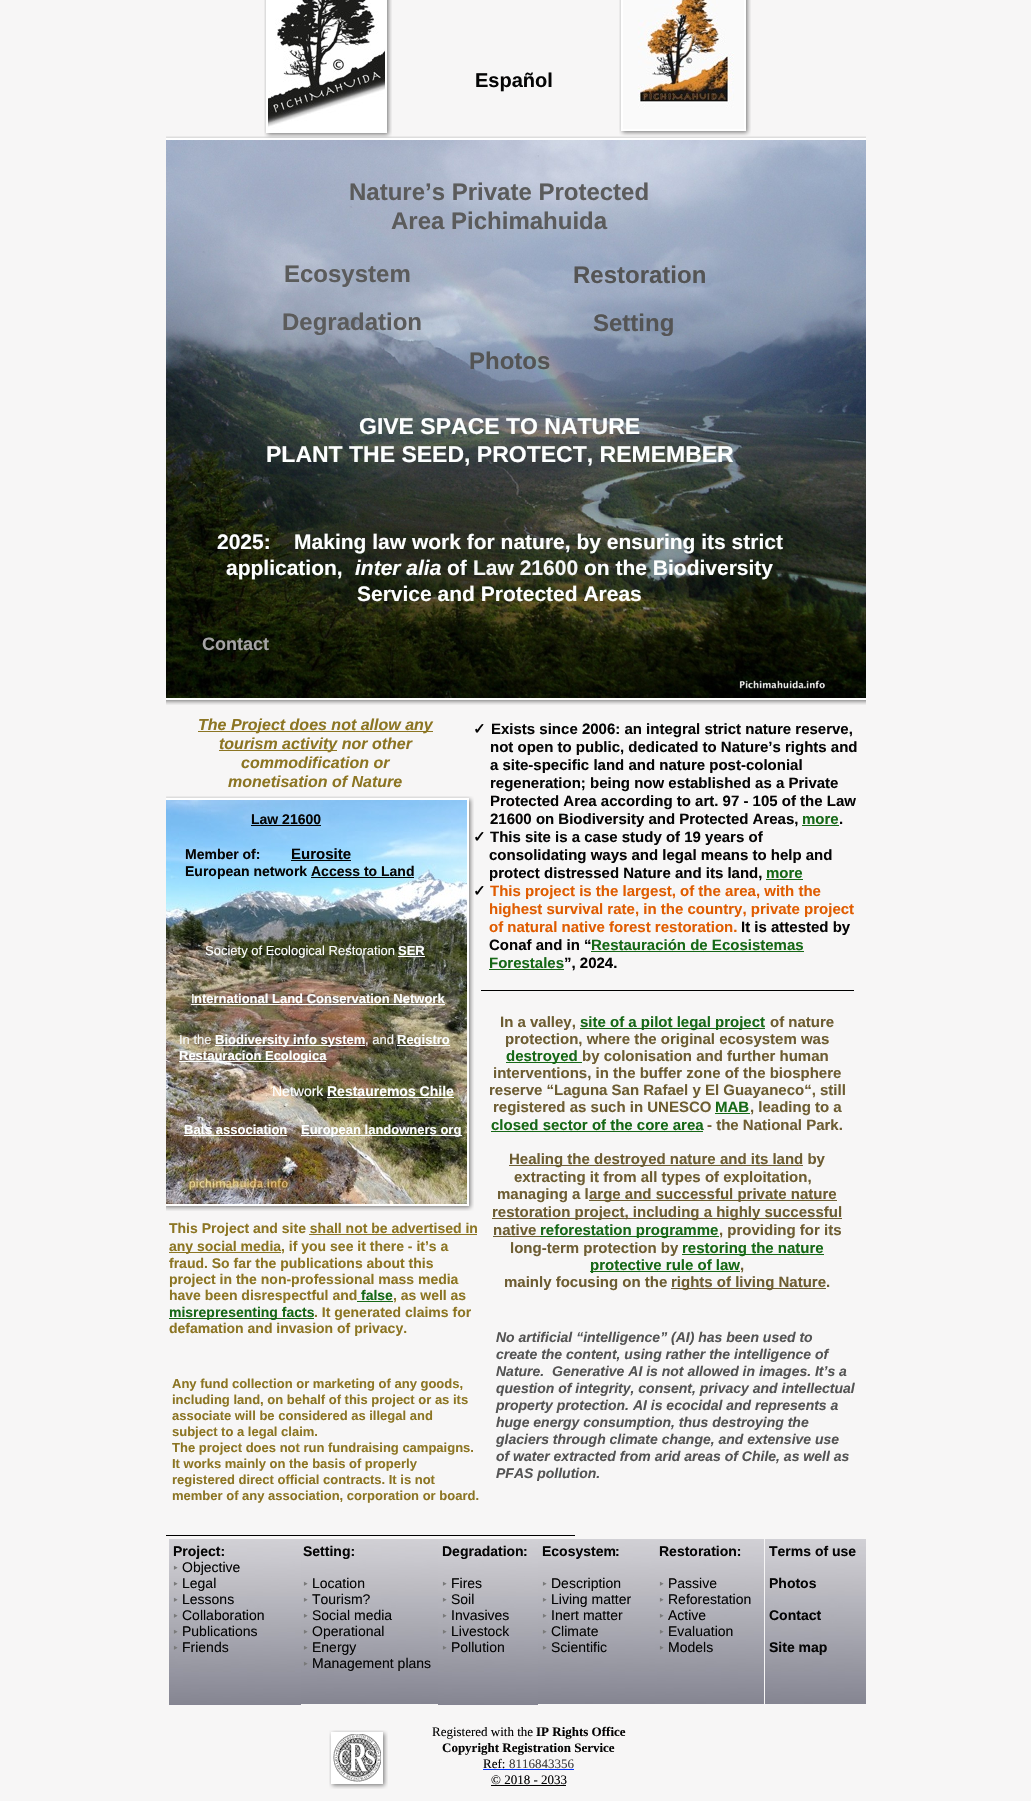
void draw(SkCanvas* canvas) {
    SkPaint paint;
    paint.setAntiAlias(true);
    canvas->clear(0xFFF7F6F6);
    canvas->drawImageRect(SkImages::DeferredFromEncodedData(SkData::MakeFromFileName("img3.png")), SkRect::MakeXYWH(166, 136, 700, 569), SkSamplingOptions());
    canvas->drawImageRect(SkImages::DeferredFromEncodedData(SkData::MakeFromFileName("img1.png")), SkRect::MakeXYWH(264, 0, 128, 138), SkSamplingOptions());
    SkFont font1(fontMgr->matchFamilyStyle("Liberation Sans", SkFontStyle::Bold()), 20);
    font1.setSubpixel(true);
    paint.setColor(0xFF050505);
    canvas->drawString("Español", 475, 87, font1, paint);
    canvas->drawImageRect(SkImages::DeferredFromEncodedData(SkData::MakeFromFileName("img2.png")), SkRect::MakeXYWH(619, 0, 132, 136), SkSamplingOptions());
    SkFont font2(fontMgr->matchFamilyStyle("Liberation Sans", SkFontStyle::Bold()), 24);
    font2.setSubpixel(true);
    paint.setColor(0xFF5B5B5B);
    canvas->drawString("Nature’s Private Protected", 349, 200, font2, paint);
    canvas->drawString("Area Pichimahuida", 391, 229, font2, paint);
    canvas->drawString("Ecosystem", 284, 282, font2, paint);
    paint.setColor(0xFF545454);
    canvas->drawString("Restoration", 573, 283, font2, paint);
    paint.setColor(0xFF5B5B5B);
    canvas->drawString("Degradation", 282, 330, font2, paint);
    paint.setColor(0xFF545454);
    canvas->drawString("Setting", 593, 331, font2, paint);
    canvas->drawString("Photos", 469, 369, font2, paint);
    SkFont font3(fontMgr->matchFamilyStyle("Liberation Sans", SkFontStyle::Bold()), 23);
    font3.setSubpixel(true);
    paint.setColor(0xFFFDFFFF);
    canvas->drawString("GIVE SPACE TO NATURE", 359, 434, font3, paint);
    canvas->drawString("PLANT THE SEED, PROTECT, REMEMBER", 266, 462, font3, paint);
    SkFont font4(fontMgr->matchFamilyStyle("Liberation Sans", SkFontStyle::Bold()), 21);
    font4.setSubpixel(true);
    canvas->drawString("2025:    Making law work for nature, by ensuring its strict", 217, 549, font4, paint);
    canvas->drawString("application,", 226, 575, font4, paint);
    SkFont font5(fontMgr->matchFamilyStyle("Liberation Sans", SkFontStyle::BoldItalic()), 21);
    font5.setSubpixel(true);
    canvas->drawString("inter alia", 355, 575, font5, paint);
    canvas->drawString("of", 447, 575, font4, paint);
    paint.setColor(0xFFF5F7F7);
    canvas->drawString("Law 21600", 473, 575, font4, paint);
    paint.setColor(0xFFFDFFFF);
    canvas->drawString("on the Biodiversity", 584, 575, font4, paint);
    canvas->drawString("Service and Protected Areas", 357, 601, font4, paint);
    SkFont font6(fontMgr->matchFamilyStyle("Liberation Sans", SkFontStyle::Bold()), 18);
    font6.setSubpixel(true);
    paint.setColor(0xFFA5A5A5);
    canvas->drawString("Contact", 202, 650, font6, paint);
    paint.setColor(0xFF8C7523);
    canvas->drawRect(SkRect::MakeXYWH(198, 731, 235, 1), paint);
    SkFont font7(fontMgr->matchFamilyStyle("Liberation Sans", SkFontStyle::BoldItalic()), 16);
    font7.setSubpixel(true);
    canvas->drawString("The Project does not allow any", 198, 730, font7, paint);
    canvas->drawRect(SkRect::MakeXYWH(219, 750, 118, 1), paint);
    canvas->drawString("tourism activity nor other", 219, 749, font7, paint);
    canvas->drawString("commodification or", 241, 768, font7, paint);
    canvas->drawString("monetisation of Nature", 228, 787, font7, paint);
    SkFont font8(fontMgr->matchFamilyStyle("DejaVu Sans", SkFontStyle::Bold()), 15);
    font8.setSubpixel(true);
    paint.setColor(0xFF050505);
    canvas->drawString("✓", 473, 734, font8, paint);
    SkFont font9(fontMgr->matchFamilyStyle("Liberation Sans", SkFontStyle::Bold()), 15);
    font9.setSubpixel(true);
    canvas->drawString("Exists since 2006: an integral strict nature reserve,", 491, 734, font9, paint);
    canvas->drawString("not open to public, dedicated to Nature’s rights and", 490, 752, font9, paint);
    canvas->drawString("a site-specific land and nature post-colonial", 490, 770, font9, paint);
    canvas->drawString("regeneration; being now established as a Private", 490, 788, font9, paint);
    canvas->drawString("Protected Area according to art. 97 - 105 of the Law", 490, 806, font9, paint);
    canvas->drawString("21600 on Biodiversity and Protected Areas,", 490, 824, font9, paint);
    paint.setColor(0xFF166816);
    canvas->drawString("more", 802, 824, font9, paint);
    canvas->drawRect(SkRect::MakeXYWH(802, 825, 37, 1), paint);
    paint.setColor(0xFF050505);
    canvas->drawString(".", 839, 824, font9, paint);
    canvas->drawString("✓", 473, 842, font8, paint);
    canvas->drawString("This site is a case study of 19 years of", 490, 842, font9, paint);
    canvas->drawString("consolidating ways and legal means to help and", 489, 860, font9, paint);
    canvas->drawString("protect distressed Nature and its land,", 489, 878, font9, paint);
    paint.setColor(0xFF166816);
    canvas->drawString("more", 766, 878, font9, paint);
    canvas->drawRect(SkRect::MakeXYWH(766, 879, 37, 1), paint);
    paint.setColor(0xFF050505);
    canvas->drawString("✓", 473, 896, font8, paint);
    paint.setColor(0xFFE05C00);
    canvas->drawString("This project is the largest, of the area, with the", 490, 896, font9, paint);
    canvas->drawString("highest survival rate, in the country, private project", 489, 914, font9, paint);
    canvas->drawString("of natural native forest restoration.", 489, 932, font9, paint);
    paint.setColor(0xFF050505);
    canvas->drawString("It is attested by", 741, 932, font9, paint);
    canvas->drawString("Conaf and in “", 489, 950, font9, paint);
    paint.setColor(0xFF166816);
    canvas->drawString("Restauración de Ecosistemas", 591, 950, font9, paint);
    canvas->drawRect(SkRect::MakeXYWH(591, 951, 213, 1), paint);
    canvas->drawString("Forestales", 489, 968, font9, paint);
    canvas->drawRect(SkRect::MakeXYWH(489, 969, 75, 1), paint);
    paint.setColor(0xFF050505);
    canvas->drawString("”, 2024.", 564, 968, font9, paint);
    canvas->drawImageRect(SkImages::DeferredFromEncodedData(SkData::MakeFromFileName("img4.png")), SkRect::MakeXYWH(166, 796, 308, 415), SkSamplingOptions());
    SkFont font10(fontMgr->matchFamilyStyle("Liberation Sans", SkFontStyle::Bold()), 14);
    font10.setSubpixel(true);
    canvas->drawString("Law 21600", 251, 824, font10, paint);
    paint.setColor(0xFF010101);
    canvas->drawRect(SkRect::MakeXYWH(251, 825, 70, 1), paint);
    paint.setColor(0xFF050505);
    canvas->drawString("Member of:", 185, 859, font10, paint);
    canvas->drawString("Eurosite", 291, 859, font9, paint);
    paint.setColor(0xFF010101);
    canvas->drawRect(SkRect::MakeXYWH(291, 860, 60, 1), paint);
    paint.setColor(0xFF050505);
    canvas->drawString("European network", 185, 876, font10, paint);
    canvas->drawString("Access to Land", 311, 876, font10, paint);
    paint.setColor(0xFF010101);
    canvas->drawRect(SkRect::MakeXYWH(311, 877, 103, 1), paint);
    SkFont font11(fontMgr->matchFamilyStyle("Liberation Sans", SkFontStyle::Normal()), 13);
    font11.setSubpixel(true);
    paint.setColor(0xFFFDFFFF);
    canvas->drawString("Society of Ecological Restoration", 205, 955, font11, paint);
    SkFont font12(fontMgr->matchFamilyStyle("Liberation Sans", SkFontStyle::Bold()), 13);
    font12.setSubpixel(true);
    canvas->drawString("SER", 398, 955, font12, paint);
    paint.setColor(0xFFFFFFFF);
    canvas->drawRect(SkRect::MakeXYWH(398, 956, 27, 1), paint);
    paint.setColor(0xFF000000);
    canvas->drawRect(SkRect::MakeXYWH(481, 990, 373, 1), paint);
    paint.setColor(0xFFFDFFFF);
    canvas->drawString("I", 191, 1003, font11, paint);
    paint.setColor(0xFFFFFFFF);
    canvas->drawRect(SkRect::MakeXYWH(191, 1004, 254, 1), paint);
    paint.setColor(0xFFFDFFFF);
    canvas->drawString("nternational Land Conservation Network", 194, 1003, font12, paint);
    paint.setColor(0xFFF5F7F7);
    canvas->drawString("In the", 179, 1044, font11, paint);
    paint.setColor(0xFFFBFBFB);
    canvas->drawRect(SkRect::MakeXYWH(215, 1045, 150, 1), paint);
    paint.setColor(0xFFFDFFFF);
    canvas->drawString("Biodiversity info system", 215, 1044, font12, paint);
    paint.setColor(0xFFF5F7F7);
    canvas->drawString(", and", 365, 1044, font11, paint);
    paint.setColor(0xFFFDFFFF);
    canvas->drawRect(SkRect::MakeXYWH(397, 1045, 53, 1), paint);
    canvas->drawString("Registro", 397, 1044, font12, paint);
    canvas->drawRect(SkRect::MakeXYWH(179, 1061, 147, 1), paint);
    canvas->drawString("Restauracion Ecologica", 179, 1060, font12, paint);
    paint.setColor(0xFF6D5D32);
    canvas->drawString("In a valley,", 500, 1027, font9, paint);
    paint.setColor(0xFF166816);
    canvas->drawRect(SkRect::MakeXYWH(580, 1028, 185, 1), paint);
    canvas->drawString("site of a pilot legal project", 580, 1027, font9, paint);
    paint.setColor(0xFF6D5D32);
    canvas->drawString("of nature", 770, 1027, font9, paint);
    canvas->drawString("protection, where the original ecosystem was", 505, 1044, font9, paint);
    paint.setColor(0xFF166816);
    canvas->drawRect(SkRect::MakeXYWH(506, 1062, 76, 1), paint);
    canvas->drawString("destroyed", 506, 1061, font9, paint);
    paint.setColor(0xFF6D5D32);
    canvas->drawString("by colonisation and further human", 582, 1061, font9, paint);
    canvas->drawString("interventions, in the buffer zone of the biosphere", 493, 1078, font9, paint);
    canvas->drawString("reserve “Laguna San Rafael y El Guayaneco“, still", 489, 1095, font9, paint);
    canvas->drawString("registered as such in UNESCO", 493, 1112, font9, paint);
    paint.setColor(0xFF166816);
    canvas->drawString("MAB", 715, 1112, font9, paint);
    canvas->drawRect(SkRect::MakeXYWH(715, 1113, 35, 1), paint);
    paint.setColor(0xFF6D5D32);
    canvas->drawString(", leading to a", 750, 1112, font9, paint);
    paint.setColor(0xFF166816);
    canvas->drawString("closed sector of the core area", 491, 1130, font9, paint);
    canvas->drawRect(SkRect::MakeXYWH(491, 1131, 212, 1), paint);
    paint.setColor(0xFF6D5D32);
    canvas->drawString("- the National Park.", 707, 1130, font9, paint);
    canvas->drawRect(SkRect::MakeXYWH(509, 1165, 294, 1), paint);
    canvas->drawString("Healing the destroyed nature and its land by", 509, 1164, font9, paint);
    canvas->drawString("extracting it from all types of exploitation,", 514, 1182, font9, paint);
    canvas->drawString("managing a l", 497, 1199, font9, paint);
    canvas->drawRect(SkRect::MakeXYWH(589, 1200, 248, 1), paint);
    canvas->drawString("arge and successful private nature", 589, 1199, font9, paint);
    canvas->drawRect(SkRect::MakeXYWH(492, 1218, 350, 1), paint);
    canvas->drawString("restoration project, including a highly successful", 492, 1217, font9, paint);
    canvas->drawString("native", 493, 1235, font9, paint);
    canvas->drawRect(SkRect::MakeXYWH(493, 1236, 47, 1), paint);
    paint.setColor(0xFF166816);
    canvas->drawRect(SkRect::MakeXYWH(540, 1236, 179, 1), paint);
    canvas->drawString("reforestation programme", 540, 1235, font9, paint);
    paint.setColor(0xFF6D5D32);
    canvas->drawString(", providing for its", 719, 1235, font9, paint);
    canvas->drawString("long-term protection by", 510, 1253, font9, paint);
    paint.setColor(0xFF166816);
    canvas->drawRect(SkRect::MakeXYWH(682, 1254, 142, 1), paint);
    canvas->drawString("restoring the nature", 682, 1253, font9, paint);
    canvas->drawRect(SkRect::MakeXYWH(590, 1271, 150, 1), paint);
    canvas->drawString("protective rule of law", 590, 1270, font9, paint);
    paint.setColor(0xFF6D5D32);
    canvas->drawString(",", 740, 1270, font9, paint);
    canvas->drawString("mainly focusing on the", 504, 1287, font9, paint);
    canvas->drawRect(SkRect::MakeXYWH(671, 1288, 155, 1), paint);
    canvas->drawString("rights of living Nature.", 671, 1287, font9, paint);
    SkFont font13(fontMgr->matchFamilyStyle("Liberation Sans", SkFontStyle::Normal()), 14);
    font13.setSubpixel(true);
    paint.setColor(0xFFFDFFFF);
    canvas->drawString("Network", 272, 1096, font13, paint);
    canvas->drawString("Restauremos Chile", 327, 1096, font10, paint);
    paint.setColor(0xFFFFFFFF);
    canvas->drawRect(SkRect::MakeXYWH(327, 1097, 127, 1), paint);
    paint.setColor(0xFFFDFFFF);
    canvas->drawString("Bats association", 184, 1134, font12, paint);
    canvas->drawRect(SkRect::MakeXYWH(184, 1135, 103, 1), paint);
    canvas->drawRect(SkRect::MakeXYWH(301, 1135, 161, 1), paint);
    canvas->drawString("European landowners org", 301, 1134, font12, paint);
    paint.setColor(0xFF8C7523);
    canvas->drawString("This Project and site shall not be advertised in", 169, 1233, font10, paint);
    canvas->drawRect(SkRect::MakeXYWH(169, 1252, 112, 1), paint);
    canvas->drawString("any social media, if you see it there - it’s a", 169, 1251, font10, paint);
    canvas->drawRect(SkRect::MakeXYWH(309, 1234, 168, 1), paint);
    canvas->drawString("fraud. So far the publications about this", 169, 1268, font10, paint);
    canvas->drawString("project in the non-professional mass media", 169, 1284, font10, paint);
    canvas->drawString("have been disrespectful and", 169, 1300, font10, paint);
    paint.setColor(0xFF166816);
    canvas->drawString("false", 361, 1300, font10, paint);
    canvas->drawRect(SkRect::MakeXYWH(357, 1301, 36, 1), paint);
    paint.setColor(0xFF8C7523);
    canvas->drawString(", as well as", 393, 1300, font10, paint);
    paint.setColor(0xFF166816);
    canvas->drawRect(SkRect::MakeXYWH(169, 1318, 145, 1), paint);
    canvas->drawString("misrepresenting facts", 169, 1317, font10, paint);
    paint.setColor(0xFF8C7523);
    canvas->drawString(". It generated claims for", 314, 1317, font10, paint);
    canvas->drawString("defamation and invasion of privacy.", 169, 1333, font10, paint);
    canvas->drawString("Any fund collection or marketing of any goods,", 172, 1388, font12, paint);
    canvas->drawString("including land, on behalf of this project or as its", 172, 1404, font12, paint);
    canvas->drawString("associate will be considered as illegal and", 172, 1420, font12, paint);
    canvas->drawString("subject to a legal claim.", 172, 1436, font12, paint);
    canvas->drawString("The project does not run fundraising campaigns.", 172, 1452, font12, paint);
    canvas->drawString("It works mainly on the basis of properly", 172, 1468, font12, paint);
    canvas->drawString("registered direct official contracts. It is not", 172, 1484, font12, paint);
    canvas->drawString("member of any association, corporation or board.", 172, 1500, font12, paint);
    SkFont font14(fontMgr->matchFamilyStyle("Liberation Sans", SkFontStyle::BoldItalic()), 14);
    font14.setSubpixel(true);
    paint.setColor(0xFF545454);
    canvas->drawString("No artificial “intelligence” (AI) has been used to", 496, 1342, font14, paint);
    canvas->drawString("create the content, using rather the intelligence of", 496, 1359, font14, paint);
    canvas->drawString("Nature.  Generative AI is not allowed in images. It’s a", 496, 1376, font14, paint);
    canvas->drawString("question of integrity, consent, privacy and intellectual", 496, 1393, font14, paint);
    canvas->drawString("property protection. AI is ecocidal and represents a", 496, 1410, font14, paint);
    canvas->drawString("huge energy consumption, thus destroying the", 496, 1427, font14, paint);
    canvas->drawString("glaciers through climate change, and extensive use", 496, 1444, font14, paint);
    canvas->drawString("of water extracted from arid areas of Chile, as well as", 496, 1461, font14, paint);
    canvas->drawString("PFAS pollution.", 496, 1478, font14, paint);
    paint.setColor(0xFF000000);
    canvas->drawRect(SkRect::MakeXYWH(166, 1535, 409, 1), paint);
    canvas->drawImageRect(SkImages::DeferredFromEncodedData(SkData::MakeFromFileName("img5.png")), SkRect::MakeXYWH(169, 1539, 132, 166), SkSamplingOptions());
    paint.setColor(0xFF050505);
    canvas->drawString("Project:", 173, 1556, font10, paint);
    SkFont font15(fontMgr->matchFamilyStyle("Noto Sans", SkFontStyle::Normal()), 14);
    font15.setSubpixel(true);
    paint.setColor(0xFF797979);
    canvas->drawString("‣", 173, 1573, font15, paint);
    paint.setColor(0xFF050505);
    canvas->drawString("Objective", 182, 1572, font13, paint);
    paint.setColor(0xFF797979);
    canvas->drawString("‣", 173, 1589, font15, paint);
    paint.setColor(0xFF050505);
    canvas->drawString("Legal", 182, 1588, font13, paint);
    paint.setColor(0xFF797979);
    canvas->drawString("‣", 173, 1605, font15, paint);
    paint.setColor(0xFF050505);
    canvas->drawString("Lessons", 182, 1604, font13, paint);
    paint.setColor(0xFF797979);
    canvas->drawString("‣", 173, 1621, font15, paint);
    paint.setColor(0xFF050505);
    canvas->drawString("Collaboration", 182, 1620, font13, paint);
    paint.setColor(0xFF797979);
    canvas->drawString("‣", 173, 1637, font15, paint);
    paint.setColor(0xFF050505);
    canvas->drawString("Publications", 182, 1636, font13, paint);
    paint.setColor(0xFF797979);
    canvas->drawString("‣", 173, 1653, font15, paint);
    paint.setColor(0xFF050505);
    canvas->drawString("Friends", 182, 1652, font13, paint);
    canvas->drawImageRect(SkImages::DeferredFromEncodedData(SkData::MakeFromFileName("img6.png")), SkRect::MakeXYWH(301, 1539, 137, 165), SkSamplingOptions());
    canvas->drawString("Setting:", 303, 1556, font10, paint);
    paint.setColor(0xFF797979);
    canvas->drawString("‣", 303, 1589, font15, paint);
    paint.setColor(0xFF050505);
    canvas->drawString("Location", 312, 1588, font13, paint);
    paint.setColor(0xFF797979);
    canvas->drawString("‣", 303, 1605, font15, paint);
    paint.setColor(0xFF050505);
    canvas->drawString("Tourism?", 312, 1604, font13, paint);
    paint.setColor(0xFF797979);
    canvas->drawString("‣", 303, 1621, font15, paint);
    paint.setColor(0xFF050505);
    canvas->drawString("Social media", 312, 1620, font13, paint);
    paint.setColor(0xFF797979);
    canvas->drawString("‣", 303, 1637, font15, paint);
    paint.setColor(0xFF050505);
    canvas->drawString("Operational", 312, 1636, font13, paint);
    paint.setColor(0xFF797979);
    canvas->drawString("‣", 303, 1653, font15, paint);
    paint.setColor(0xFF050505);
    canvas->drawString("Energy", 312, 1652, font13, paint);
    paint.setColor(0xFF797979);
    canvas->drawString("‣", 303, 1669, font15, paint);
    paint.setColor(0xFF050505);
    canvas->drawString("Management plan", 312, 1668, font13, paint);
    canvas->drawString("s", 424, 1668, font13, paint);
    canvas->drawImageRect(SkImages::DeferredFromEncodedData(SkData::MakeFromFileName("img7.png")), SkRect::MakeXYWH(438, 1539, 100, 166), SkSamplingOptions());
    canvas->drawString("Degradation", 442, 1556, font10, paint);
    canvas->drawString(":", 523, 1556, font10, paint);
    paint.setColor(0xFF797979);
    canvas->drawString("‣", 442, 1589, font15, paint);
    paint.setColor(0xFF050505);
    canvas->drawString("Fires", 451, 1588, font13, paint);
    paint.setColor(0xFF797979);
    canvas->drawString("‣", 442, 1605, font15, paint);
    paint.setColor(0xFF050505);
    canvas->drawString("Soil", 451, 1604, font13, paint);
    paint.setColor(0xFF797979);
    canvas->drawString("‣", 442, 1621, font15, paint);
    paint.setColor(0xFF050505);
    canvas->drawString("Invasives", 451, 1620, font13, paint);
    paint.setColor(0xFF797979);
    canvas->drawString("‣", 442, 1637, font15, paint);
    paint.setColor(0xFF050505);
    canvas->drawString("Livestock", 451, 1636, font13, paint);
    paint.setColor(0xFF797979);
    canvas->drawString("‣", 442, 1653, font15, paint);
    paint.setColor(0xFF050505);
    canvas->drawString("Pollution", 451, 1652, font13, paint);
    canvas->drawImageRect(SkImages::DeferredFromEncodedData(SkData::MakeFromFileName("img8.png")), SkRect::MakeXYWH(538, 1539, 117, 165), SkSamplingOptions());
    canvas->drawString("Ecosystem", 542, 1556, font10, paint);
    canvas->drawString(":", 615, 1556, font10, paint);
    paint.setColor(0xFF797979);
    canvas->drawString("‣", 542, 1589, font15, paint);
    paint.setColor(0xFF050505);
    canvas->drawString("Description", 551, 1588, font13, paint);
    paint.setColor(0xFF797979);
    canvas->drawString("‣", 542, 1605, font15, paint);
    paint.setColor(0xFF050505);
    canvas->drawString("Living matter", 551, 1604, font13, paint);
    paint.setColor(0xFF797979);
    canvas->drawString("‣", 542, 1621, font15, paint);
    paint.setColor(0xFF050505);
    canvas->drawString("Inert matter", 551, 1620, font13, paint);
    paint.setColor(0xFF797979);
    canvas->drawString("‣", 542, 1637, font15, paint);
    paint.setColor(0xFF050505);
    canvas->drawString("Climate", 551, 1636, font13, paint);
    paint.setColor(0xFF797979);
    canvas->drawString("‣", 542, 1653, font15, paint);
    paint.setColor(0xFF050505);
    canvas->drawString("Scientific", 551, 1652, font13, paint);
    canvas->drawImageRect(SkImages::DeferredFromEncodedData(SkData::MakeFromFileName("img9.png")), SkRect::MakeXYWH(655, 1539, 109, 165), SkSamplingOptions());
    canvas->drawString("Restoration:", 659, 1556, font10, paint);
    paint.setColor(0xFF797979);
    canvas->drawString("‣", 659, 1589, font15, paint);
    paint.setColor(0xFF050505);
    canvas->drawString("Passive", 668, 1588, font13, paint);
    paint.setColor(0xFF797979);
    canvas->drawString("‣", 659, 1605, font15, paint);
    paint.setColor(0xFF050505);
    canvas->drawString("Reforestation", 668, 1604, font13, paint);
    paint.setColor(0xFF797979);
    canvas->drawString("‣", 659, 1621, font15, paint);
    paint.setColor(0xFF050505);
    canvas->drawString("Active", 668, 1620, font13, paint);
    paint.setColor(0xFF797979);
    canvas->drawString("‣", 659, 1637, font15, paint);
    paint.setColor(0xFF050505);
    canvas->drawString("Evaluation", 668, 1636, font13, paint);
    paint.setColor(0xFF797979);
    canvas->drawString("‣", 659, 1653, font15, paint);
    paint.setColor(0xFF050505);
    canvas->drawString("Models", 668, 1652, font13, paint);
    canvas->drawImageRect(SkImages::DeferredFromEncodedData(SkData::MakeFromFileName("img10.png")), SkRect::MakeXYWH(765, 1539, 101, 165), SkSamplingOptions());
    canvas->drawString("Terms of use", 769, 1556, font10, paint);
    canvas->drawString("Photos", 769, 1588, font10, paint);
    canvas->drawString("Contact", 769, 1620, font10, paint);
    canvas->drawString("Site map", 769, 1652, font10, paint);
    canvas->drawImageRect(SkImages::DeferredFromEncodedData(SkData::MakeFromFileName("img11.png")), SkRect::MakeXYWH(329, 1730, 59, 59), SkSamplingOptions());
    SkFont font16(fontMgr->matchFamilyStyle("Liberation Serif", SkFontStyle::Normal()), 13);
    font16.setSubpixel(true);
    canvas->drawString("Registered with the", 432, 1736, font16, paint);
    SkFont font17(fontMgr->matchFamilyStyle("Liberation Serif", SkFontStyle::Bold()), 13);
    font17.setSubpixel(true);
    canvas->drawString("IP Rights Office", 536, 1736, font17, paint);
    canvas->drawString("Copyright Registration Service", 442, 1752, font17, paint);
    canvas->drawString("Ref:", 483, 1768, font16, paint);
    paint.setColor(0xFF0433FF);
    canvas->drawRect(SkRect::MakeXYWH(483, 1769, 91, 1), paint);
    paint.setColor(0xFF404040);
    canvas->drawString("8116843356", 509, 1768, font16, paint);
    paint.setColor(0xFF050505);
    canvas->drawString("© 2018 - 2033", 491, 1784, font16, paint);
    paint.setColor(0xFF000000);
    canvas->drawRect(SkRect::MakeXYWH(491, 1785, 75, 1), paint);
}
